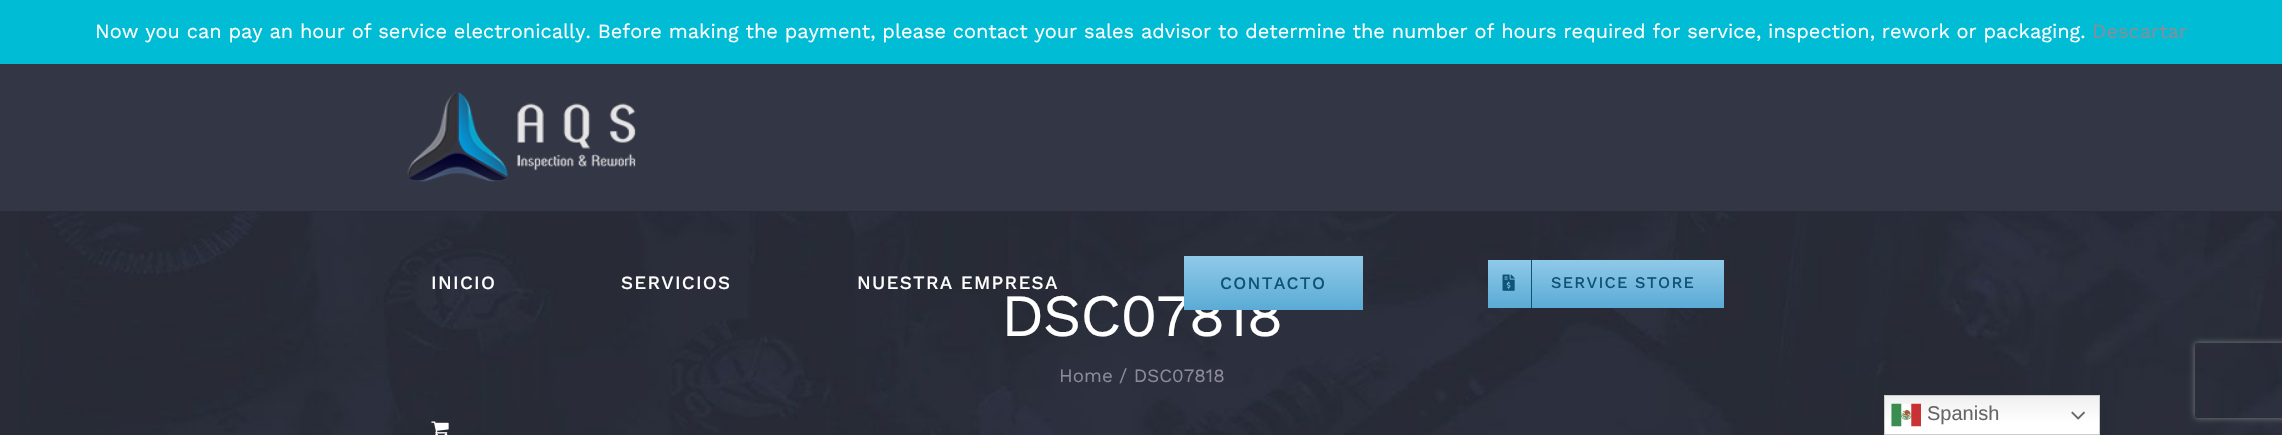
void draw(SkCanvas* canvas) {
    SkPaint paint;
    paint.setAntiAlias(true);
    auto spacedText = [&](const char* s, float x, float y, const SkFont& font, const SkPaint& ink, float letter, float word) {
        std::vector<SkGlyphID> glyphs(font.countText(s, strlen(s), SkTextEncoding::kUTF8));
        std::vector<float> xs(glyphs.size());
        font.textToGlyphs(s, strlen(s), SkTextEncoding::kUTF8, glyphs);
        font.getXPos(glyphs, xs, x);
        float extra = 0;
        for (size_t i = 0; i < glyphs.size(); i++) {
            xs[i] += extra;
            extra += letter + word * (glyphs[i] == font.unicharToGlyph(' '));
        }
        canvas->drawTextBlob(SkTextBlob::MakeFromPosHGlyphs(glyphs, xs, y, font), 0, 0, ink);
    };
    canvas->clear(0xFF333645);
    paint.setColor(0xFF00BCD4);
    canvas->drawRect(SkRect::MakeXYWH(0, 0, 2282, 64), paint);
    SkFont font1(fontMgr->matchFamilyStyle("Work Sans", SkFontStyle::Normal()), 20);
    font1.setSubpixel(true);
    paint.setColor(0xFFFFFFFF);
    canvas->drawString("Now you can pay an hour of service electronically. Before making the payment, please contact your sales advisor to determine the number of hours required for service, inspection, rework or packaging.", 95, 38, font1, paint);
    paint.setColor(0xFF8B8C97);
    canvas->drawString("Descartar", 2092, 38, font1, paint);
    canvas->drawImageRect(SkImages::DeferredFromEncodedData(SkData::MakeFromFileName("img1.png")), SkRect::MakeXYWH(407, 92, 229, 90), SkSamplingOptions());
    canvas->drawImageRect(SkImages::DeferredFromEncodedData(SkData::MakeFromFileName("img4.png")), SkRect::MakeXYWH(20, 212, 2262, 223), SkSamplingOptions());
    SkFont font2(fontMgr->matchFamilyStyle("Work Sans", SkFontStyle(500, SkFontStyle::kNormal_Width, SkFontStyle::kUpright_Slant)), 18.75f);
    font2.setSubpixel(true);
    paint.setColor(0xFFFFFFFF);
    spacedText("INICIO", 431, 289, font2, paint, 1.25f, 0);
    spacedText("SERVICIOS", 621, 289, font2, paint, 1.25f, 0);
    spacedText("NUESTRA EMPRESA", 857, 289, font2, paint, 1.25f, 0);
    SkFont font3(fontMgr->matchFamilyStyle("Work Sans", SkFontStyle::Normal()), 60);
    font3.setSubpixel(true);
    spacedText("DSC07818", 1001, 336, font3, paint, -1.25f, 0);
    {
        const SkColor colors[] = {0xFF5AABD6, 0xFF90C9E8};
        const float stops[] = {0, 1};
        const SkPoint ends[] = {{1273, 310}, {1273, 256}};
        paint.setShader(SkGradientShader::MakeLinear(ends, colors, stops, 2, SkTileMode::kClamp));
        paint.setAlpha(255);
    }
    canvas->drawRect(SkRect::MakeXYWH(1184, 256, 179, 54), paint);
    SkFont font4(fontMgr->matchFamilyStyle("Work Sans", SkFontStyle(500, SkFontStyle::kNormal_Width, SkFontStyle::kUpright_Slant)), 17.5f);
    font4.setSubpixel(true);
    paint.setShader(nullptr);
    paint.setColor(0xFF105378);
    spacedText("CONTACTO", 1220, 289, font4, paint, 1.25f, 0);
    {
        const SkColor colors[] = {0xFF5AABD6, 0xFF90C9E8};
        const float stops[] = {0, 1};
        const SkPoint ends[] = {{1606, 308}, {1606, 260}};
        paint.setShader(SkGradientShader::MakeLinear(ends, colors, stops, 2, SkTileMode::kClamp));
        paint.setAlpha(255);
    }
    canvas->drawRect(SkRect::MakeXYWH(1488, 260, 236, 48), paint);
    paint.setShader(nullptr);
    paint.setColor(0xFF105378);
    canvas->drawRect(SkRect::MakeXYWH(1531, 260, 1, 48), paint);
    canvas->drawImageRect(SkImages::DeferredFromEncodedData(SkData::MakeFromFileName("img2.png")), SkRect::MakeXYWH(1502, 274, 13, 17), SkSamplingOptions());
    SkFont font5(fontMgr->matchFamilyStyle("Work Sans", SkFontStyle(500, SkFontStyle::kNormal_Width, SkFontStyle::kUpright_Slant)), 16.25f);
    font5.setSubpixel(true);
    spacedText("SERVICE STORE", 1551, 288, font5, paint, 1.25f, 0);
    canvas->drawImageRect(SkImages::DeferredFromEncodedData(SkData::MakeFromFileName("img3.png")), SkRect::MakeXYWH(431, 421, 18, 14), SkSamplingOptions());
    paint.setColor(0xFF292B37);
    canvas->drawRect(SkRect::MakeXYWH(0, 212, 20, 223), paint);
    canvas->drawRect(SkRect::MakeXYWH(0, 211, 2282, 1), paint);
    SkFont font6(fontMgr->matchFamilyStyle("Work Sans", SkFontStyle::Normal()), 18.75f);
    font6.setSubpixel(true);
    paint.setColor(0xFF8B8C97);
    canvas->drawString("Home / DSC07818", 1059, 382, font6, paint);
    {
        const SkColor colors[] = {0xFFEFEFEF, 0xFFFFFFFF};
        const float stops[] = {0, 0.7f};
        const SkPoint ends[] = {{1992, 395}, {1992, 435}};
        paint.setShader(SkGradientShader::MakeLinear(ends, colors, stops, 2, SkTileMode::kClamp));
        paint.setAlpha(255);
    }
    canvas->drawRect(SkRect::MakeXYWH(1885, 396, 214, 38), paint);
    paint.setStyle(SkPaint::kStroke_Style);
    paint.setStrokeWidth(1);
    paint.setShader(nullptr);
    paint.setColor(0xFFCCCCCC);
    canvas->drawRect(SkRect::MakeXYWH(1884.5f, 395.5f, 215, 39), paint);
    canvas->drawImageRect(SkImages::DeferredFromEncodedData(SkData::MakeFromFileName("img5.png")), SkRect::MakeXYWH(1891, 403, 30, 24), SkSamplingOptions());
    SkFont font7(fontMgr->matchFamilyStyle("Liberation Sans", SkFontStyle::Normal()), 20);
    font7.setSubpixel(true);
    paint.setStyle(SkPaint::kFill_Style);
    paint.setColor(0xFF666666);
    canvas->drawString("Spanish", 1927, 420, font7, paint);
    canvas->drawImageRect(SkImages::DeferredFromEncodedData(SkData::MakeFromFileName("img6.png")), SkRect::MakeXYWH(2071, 411, 14, 9), SkSamplingOptions());
    canvas->save();
    canvas->clipPath(SkPathBuilder(SkPathFillType::kEvenOdd).moveTo(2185, 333).lineTo(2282, 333).lineTo(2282, 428).lineTo(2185, 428).close().moveTo(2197.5f, 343).lineTo(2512.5f, 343).cubicTo(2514, 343, 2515, 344, 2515, 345.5f).lineTo(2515, 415.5f).cubicTo(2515, 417, 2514, 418, 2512.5f, 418).lineTo(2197.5f, 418).cubicTo(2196, 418, 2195, 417, 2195, 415.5f).lineTo(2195, 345.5f).cubicTo(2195, 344, 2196, 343, 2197.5f, 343).close().detach(), true);
    paint.setColor(0xFF808080);
    paint.setMaskFilter(SkMaskFilter::MakeBlur(kNormal_SkBlurStyle, 3));
    canvas->drawRoundRect(SkRect::MakeXYWH(2195, 343, 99, 75), 2.5f, 2.5f, paint);
    paint.setMaskFilter(nullptr);
    canvas->restore();
}
